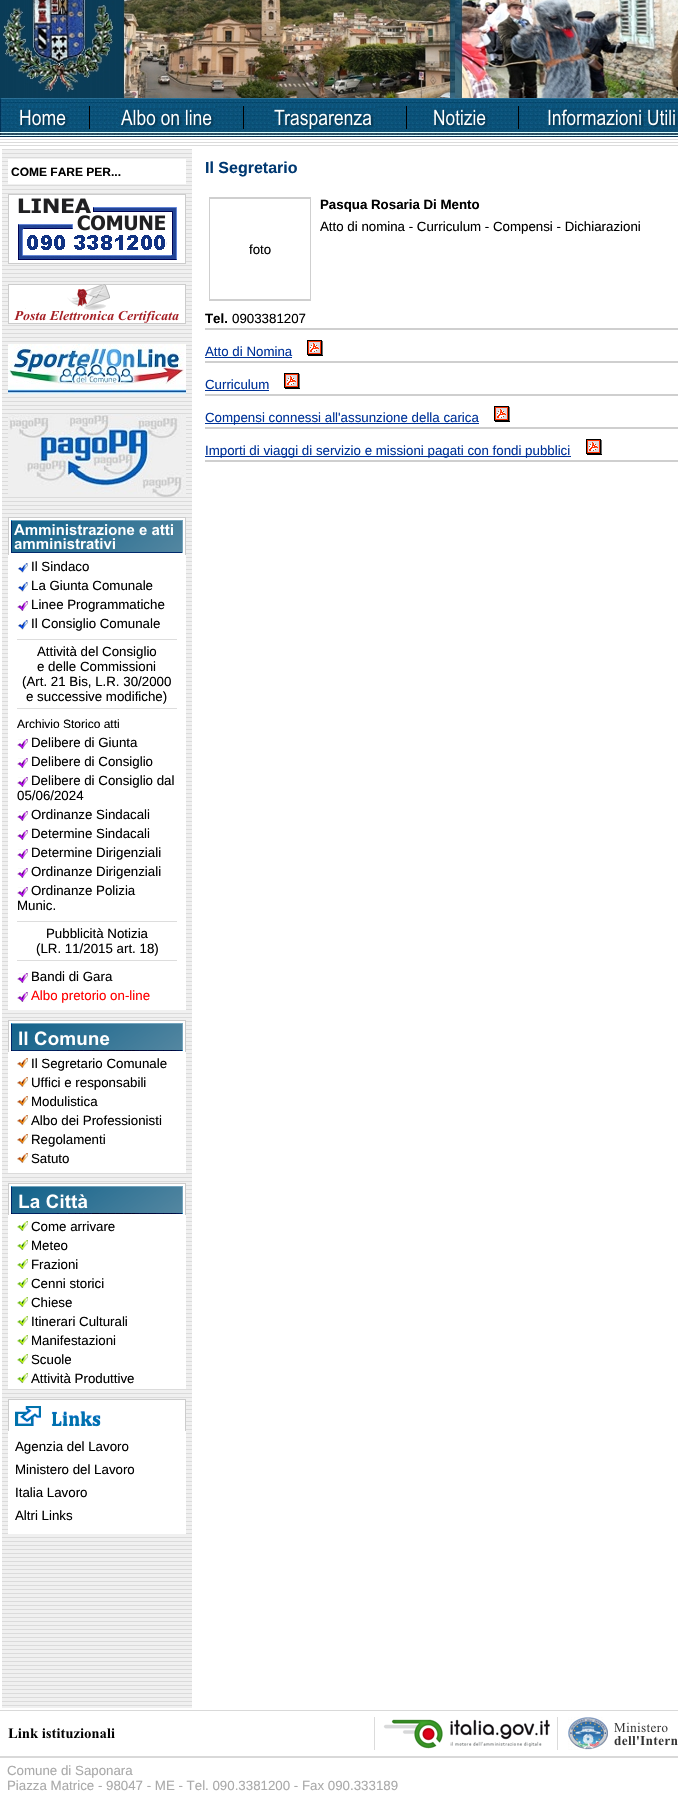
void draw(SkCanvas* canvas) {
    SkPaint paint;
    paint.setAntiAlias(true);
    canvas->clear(0xFFFFFFFF);
    canvas->drawImageRect(SkImages::DeferredFromEncodedData(SkData::MakeFromFileName("img1.png")), SkRect::MakeXYWH(0, 0, 678, 98), SkSamplingOptions());
    canvas->drawImageRect(SkImages::DeferredFromEncodedData(SkData::MakeFromFileName("img2.png")), SkRect::MakeXYWH(0, 98, 678, 39), SkSamplingOptions());
    canvas->drawImageRect(SkImages::DeferredFromEncodedData(SkData::MakeFromFileName("img3.png")), SkRect::MakeXYWH(17, 106, 52, 23), SkSamplingOptions());
    paint.setColor(0xFF000000);
    canvas->drawRect(SkRect::MakeXYWH(89, 106, 1, 23), paint);
    canvas->drawImageRect(SkImages::DeferredFromEncodedData(SkData::MakeFromFileName("img4.png")), SkRect::MakeXYWH(118, 106, 97, 23), SkSamplingOptions());
    canvas->drawRect(SkRect::MakeXYWH(243, 106, 1, 23), paint);
    canvas->drawImageRect(SkImages::DeferredFromEncodedData(SkData::MakeFromFileName("img5.png")), SkRect::MakeXYWH(271, 106, 104, 23), SkSamplingOptions());
    canvas->drawRect(SkRect::MakeXYWH(406, 106, 1, 23), paint);
    canvas->drawImageRect(SkImages::DeferredFromEncodedData(SkData::MakeFromFileName("img6.png")), SkRect::MakeXYWH(431, 106, 58, 23), SkSamplingOptions());
    canvas->drawRect(SkRect::MakeXYWH(518, 106, 1, 23), paint);
    canvas->drawImageRect(SkImages::DeferredFromEncodedData(SkData::MakeFromFileName("img7.png")), SkRect::MakeXYWH(545, 106, 133, 23), SkSamplingOptions());
    paint.setColor(0xFFDBDBDB);
    canvas->drawRect(SkRect::MakeXYWH(0, 139, 678, 1), paint);
    canvas->drawRect(SkRect::MakeXYWH(0, 142, 678, 1), paint);
    canvas->drawRect(SkRect::MakeXYWH(0, 145, 678, 1), paint);
    canvas->drawImageRect(SkImages::DeferredFromEncodedData(SkData::MakeFromFileName("img8.png")), SkRect::MakeXYWH(2, 149, 190, 1559), SkSamplingOptions());
    paint.setColor(0xFFFFFFFF);
    canvas->drawRect(SkRect::MakeXYWH(8, 159, 178, 25), paint);
    SkFont font1(fontMgr->matchFamilyStyle("Liberation Sans", SkFontStyle::Bold()), 12);
    font1.setSubpixel(true);
    paint.setColor(0xFF000000);
    canvas->drawString("COME FARE PER...", 11, 176, font1, paint);
    canvas->drawImageRect(SkImages::DeferredFromEncodedData(SkData::MakeFromFileName("img9.png")), SkRect::MakeXYWH(8, 194, 178, 70), SkSamplingOptions());
    canvas->drawImageRect(SkImages::DeferredFromEncodedData(SkData::MakeFromFileName("img10.png")), SkRect::MakeXYWH(8, 284, 178, 40), SkSamplingOptions());
    canvas->drawImageRect(SkImages::DeferredFromEncodedData(SkData::MakeFromFileName("img11.png")), SkRect::MakeXYWH(8, 344, 178, 50), SkSamplingOptions());
    canvas->drawImageRect(SkImages::DeferredFromEncodedData(SkData::MakeFromFileName("img12.png")), SkRect::MakeXYWH(8, 414, 178, 83), SkSamplingOptions());
    canvas->drawImageRect(SkImages::DeferredFromEncodedData(SkData::MakeFromFileName("img13.png")), SkRect::MakeXYWH(8, 517, 178, 38), SkSamplingOptions());
    paint.setColor(0xFFFFFFFF);
    canvas->drawRect(SkRect::MakeXYWH(8, 555, 178, 455), paint);
    canvas->drawImageRect(SkImages::DeferredFromEncodedData(SkData::MakeFromFileName("img14.png")), SkRect::MakeXYWH(17, 563, 11, 10), SkSamplingOptions());
    SkFont font2(fontMgr->matchFamilyStyle("Liberation Sans", SkFontStyle::Normal()), 13.3f);
    font2.setSubpixel(true);
    paint.setColor(0xFF000000);
    canvas->drawString("Il Sindaco", 31, 571, font2, paint);
    canvas->drawImageRect(SkImages::DeferredFromEncodedData(SkData::MakeFromFileName("img14.png")), SkRect::MakeXYWH(17, 582, 11, 10), SkSamplingOptions());
    canvas->drawString("La Giunta Comunale", 31, 590, font2, paint);
    canvas->drawImageRect(SkImages::DeferredFromEncodedData(SkData::MakeFromFileName("img15.png")), SkRect::MakeXYWH(17, 601, 11, 10), SkSamplingOptions());
    canvas->drawString("Linee Programmatiche", 31, 609, font2, paint);
    canvas->drawImageRect(SkImages::DeferredFromEncodedData(SkData::MakeFromFileName("img14.png")), SkRect::MakeXYWH(17, 620, 11, 10), SkSamplingOptions());
    canvas->drawString("Il Consiglio Comunale", 31, 628, font2, paint);
    paint.setColor(0xFFDDDDDD);
    canvas->drawRect(SkRect::MakeXYWH(17, 639, 160, 1), paint);
    paint.setColor(0xFF000000);
    canvas->drawString("Attività del Consiglio", 37, 656, font2, paint);
    canvas->drawString("e delle Commissioni", 37, 671, font2, paint);
    canvas->drawString("(Art. 21 Bis, L.R. 30/2000", 22, 686, font2, paint);
    canvas->drawString("e successive modifiche)", 26, 701, font2, paint);
    paint.setColor(0xFFDDDDDD);
    canvas->drawRect(SkRect::MakeXYWH(17, 708, 160, 1), paint);
    SkFont font3(fontMgr->matchFamilyStyle("Liberation Sans", SkFontStyle::Normal()), 12);
    font3.setSubpixel(true);
    paint.setColor(0xFF000000);
    canvas->drawString("Archivio Storico atti", 17, 728, font3, paint);
    canvas->drawImageRect(SkImages::DeferredFromEncodedData(SkData::MakeFromFileName("img15.png")), SkRect::MakeXYWH(17, 739, 11, 10), SkSamplingOptions());
    canvas->drawString("Delibere di Giunta", 31, 747, font2, paint);
    canvas->drawImageRect(SkImages::DeferredFromEncodedData(SkData::MakeFromFileName("img15.png")), SkRect::MakeXYWH(17, 758, 11, 10), SkSamplingOptions());
    canvas->drawString("Delibere di Consiglio", 31, 766, font2, paint);
    canvas->drawImageRect(SkImages::DeferredFromEncodedData(SkData::MakeFromFileName("img15.png")), SkRect::MakeXYWH(17, 777, 11, 10), SkSamplingOptions());
    canvas->drawString("Delibere di Consiglio dal", 31, 785, font2, paint);
    canvas->drawString("05/06/2024", 17, 800, font2, paint);
    canvas->drawImageRect(SkImages::DeferredFromEncodedData(SkData::MakeFromFileName("img15.png")), SkRect::MakeXYWH(17, 811, 11, 10), SkSamplingOptions());
    canvas->drawString("Ordinanze Sindacali", 31, 819, font2, paint);
    canvas->drawImageRect(SkImages::DeferredFromEncodedData(SkData::MakeFromFileName("img15.png")), SkRect::MakeXYWH(17, 830, 11, 10), SkSamplingOptions());
    canvas->drawString("Determine Sindacali", 31, 838, font2, paint);
    canvas->drawImageRect(SkImages::DeferredFromEncodedData(SkData::MakeFromFileName("img15.png")), SkRect::MakeXYWH(17, 849, 11, 10), SkSamplingOptions());
    canvas->drawString("Determine Dirigenziali", 31, 857, font2, paint);
    canvas->drawImageRect(SkImages::DeferredFromEncodedData(SkData::MakeFromFileName("img15.png")), SkRect::MakeXYWH(17, 868, 11, 10), SkSamplingOptions());
    canvas->drawString("Ordinanze Dirigenziali", 31, 876, font2, paint);
    canvas->drawImageRect(SkImages::DeferredFromEncodedData(SkData::MakeFromFileName("img15.png")), SkRect::MakeXYWH(17, 887, 11, 10), SkSamplingOptions());
    canvas->drawString("Ordinanze Polizia", 31, 895, font2, paint);
    canvas->drawString("Munic.", 17, 910, font2, paint);
    paint.setColor(0xFFDDDDDD);
    canvas->drawRect(SkRect::MakeXYWH(17, 921, 160, 1), paint);
    paint.setColor(0xFF000000);
    canvas->drawString("Pubblicità Notizia", 46, 938, font2, paint);
    canvas->drawString("(LR. 11/2015 art. 18)", 36, 953, font2, paint);
    paint.setColor(0xFFDDDDDD);
    canvas->drawRect(SkRect::MakeXYWH(17, 960, 160, 1), paint);
    canvas->drawImageRect(SkImages::DeferredFromEncodedData(SkData::MakeFromFileName("img15.png")), SkRect::MakeXYWH(17, 973, 11, 10), SkSamplingOptions());
    paint.setColor(0xFF000000);
    canvas->drawString("Bandi di Gara", 31, 981, font2, paint);
    canvas->drawImageRect(SkImages::DeferredFromEncodedData(SkData::MakeFromFileName("img15.png")), SkRect::MakeXYWH(17, 992, 11, 10), SkSamplingOptions());
    paint.setColor(0xFFFF0000);
    canvas->drawString("Albo pretorio on-line", 31, 1000, font2, paint);
    canvas->drawImageRect(SkImages::DeferredFromEncodedData(SkData::MakeFromFileName("img16.png")), SkRect::MakeXYWH(8, 1020, 178, 32), SkSamplingOptions());
    paint.setColor(0xFFFFFFFF);
    canvas->drawRect(SkRect::MakeXYWH(8, 1052, 178, 121), paint);
    canvas->drawImageRect(SkImages::DeferredFromEncodedData(SkData::MakeFromFileName("img17.png")), SkRect::MakeXYWH(17, 1058, 11, 10), SkSamplingOptions());
    paint.setColor(0xFF000000);
    canvas->drawString("Il Segretario Comunale", 31, 1068, font2, paint);
    canvas->drawImageRect(SkImages::DeferredFromEncodedData(SkData::MakeFromFileName("img17.png")), SkRect::MakeXYWH(17, 1077, 11, 10), SkSamplingOptions());
    canvas->drawString("Uffici e responsabili", 31, 1087, font2, paint);
    canvas->drawImageRect(SkImages::DeferredFromEncodedData(SkData::MakeFromFileName("img17.png")), SkRect::MakeXYWH(17, 1096, 11, 10), SkSamplingOptions());
    canvas->drawString("Modulistica", 31, 1106, font2, paint);
    canvas->drawImageRect(SkImages::DeferredFromEncodedData(SkData::MakeFromFileName("img17.png")), SkRect::MakeXYWH(17, 1115, 11, 10), SkSamplingOptions());
    canvas->drawString("Albo dei Professionisti", 31, 1125, font2, paint);
    canvas->drawImageRect(SkImages::DeferredFromEncodedData(SkData::MakeFromFileName("img17.png")), SkRect::MakeXYWH(17, 1134, 11, 10), SkSamplingOptions());
    canvas->drawString("Regolamenti", 31, 1144, font2, paint);
    canvas->drawImageRect(SkImages::DeferredFromEncodedData(SkData::MakeFromFileName("img17.png")), SkRect::MakeXYWH(17, 1153, 11, 10), SkSamplingOptions());
    canvas->drawString("Satuto", 31, 1163, font2, paint);
    canvas->drawImageRect(SkImages::DeferredFromEncodedData(SkData::MakeFromFileName("img18.png")), SkRect::MakeXYWH(8, 1183, 178, 32), SkSamplingOptions());
    paint.setColor(0xFFFFFFFF);
    canvas->drawRect(SkRect::MakeXYWH(8, 1215, 178, 174), paint);
    canvas->drawImageRect(SkImages::DeferredFromEncodedData(SkData::MakeFromFileName("img19.png")), SkRect::MakeXYWH(17, 1221, 11, 10), SkSamplingOptions());
    paint.setColor(0xFF000000);
    canvas->drawString("Come arrivare", 31, 1231, font2, paint);
    canvas->drawImageRect(SkImages::DeferredFromEncodedData(SkData::MakeFromFileName("img19.png")), SkRect::MakeXYWH(17, 1240, 11, 10), SkSamplingOptions());
    canvas->drawString("Meteo", 31, 1250, font2, paint);
    canvas->drawImageRect(SkImages::DeferredFromEncodedData(SkData::MakeFromFileName("img19.png")), SkRect::MakeXYWH(17, 1259, 11, 10), SkSamplingOptions());
    canvas->drawString("Frazioni", 31, 1269, font2, paint);
    canvas->drawImageRect(SkImages::DeferredFromEncodedData(SkData::MakeFromFileName("img19.png")), SkRect::MakeXYWH(17, 1278, 11, 10), SkSamplingOptions());
    canvas->drawString("Cenni storici", 31, 1288, font2, paint);
    canvas->drawImageRect(SkImages::DeferredFromEncodedData(SkData::MakeFromFileName("img19.png")), SkRect::MakeXYWH(17, 1297, 11, 10), SkSamplingOptions());
    canvas->drawString("Chiese", 31, 1307, font2, paint);
    canvas->drawImageRect(SkImages::DeferredFromEncodedData(SkData::MakeFromFileName("img19.png")), SkRect::MakeXYWH(17, 1316, 11, 10), SkSamplingOptions());
    canvas->drawString("Itinerari Culturali", 31, 1326, font2, paint);
    canvas->drawImageRect(SkImages::DeferredFromEncodedData(SkData::MakeFromFileName("img19.png")), SkRect::MakeXYWH(17, 1335, 11, 10), SkSamplingOptions());
    canvas->drawString("Manifestazioni", 31, 1345, font2, paint);
    canvas->drawImageRect(SkImages::DeferredFromEncodedData(SkData::MakeFromFileName("img19.png")), SkRect::MakeXYWH(17, 1354, 11, 10), SkSamplingOptions());
    canvas->drawString("Scuole", 31, 1364, font2, paint);
    canvas->drawImageRect(SkImages::DeferredFromEncodedData(SkData::MakeFromFileName("img19.png")), SkRect::MakeXYWH(17, 1373, 11, 10), SkSamplingOptions());
    canvas->drawString("Attività Produttive", 31, 1383, font2, paint);
    canvas->drawImageRect(SkImages::DeferredFromEncodedData(SkData::MakeFromFileName("img20.png")), SkRect::MakeXYWH(8, 1399, 178, 32), SkSamplingOptions());
    paint.setColor(0xFFFFFFFF);
    canvas->drawRect(SkRect::MakeXYWH(8, 1431, 178, 103), paint);
    paint.setColor(0xFF000000);
    canvas->drawString("Agenzia del Lavoro", 15, 1451, font2, paint);
    canvas->drawString("Ministero del Lavoro", 15, 1474, font2, paint);
    canvas->drawString("Italia Lavoro", 15, 1497, font2, paint);
    canvas->drawString("Altri Links", 15, 1520, font2, paint);
    SkFont font4(fontMgr->matchFamilyStyle("Liberation Sans", SkFontStyle::Bold()), 16);
    font4.setSubpixel(true);
    paint.setColor(0xFF003871);
    canvas->drawString("Il Segretario", 205, 173, font4, paint);
    SkFont font5(fontMgr->matchFamilyStyle("Liberation Sans", SkFontStyle::Bold()), 13.3f);
    font5.setSubpixel(true);
    paint.setColor(0xFF000000);
    canvas->drawString("Pasqua Rosaria Di Mento", 320, 209, font5, paint);
    canvas->drawString("Atto di nomina - Curriculum - Compensi - Dichiarazioni", 320, 231, font2, paint);
    paint.setColor(0xFFCFCFCF);
    canvas->drawRect(SkRect::MakeXYWH(209, 197, 102, 2), paint);
    canvas->drawRect(SkRect::MakeXYWH(209, 199, 1, 100), paint);
    paint.setColor(0xFF000000);
    canvas->drawString("foto", 249, 254, font2, paint);
    paint.setColor(0xFFCFCFCF);
    canvas->drawRect(SkRect::MakeXYWH(310, 199, 1, 100), paint);
    canvas->drawRect(SkRect::MakeXYWH(209, 299, 102, 2), paint);
    paint.setColor(0xFF000000);
    canvas->drawString("Tel.", 205, 323, font5, paint);
    canvas->drawString("0903381207", 232, 323, font2, paint);
    paint.setColor(0xFFCFCFCF);
    canvas->drawRect(SkRect::MakeXYWH(205, 328, 473, 2), paint);
    paint.setColor(0xFF003399);
    canvas->drawString("Atto di Nomina", 205, 356, font2, paint);
    canvas->drawRect(SkRect::MakeXYWH(205, 357, 87, 1), paint);
    canvas->drawImageRect(SkImages::DeferredFromEncodedData(SkData::MakeFromFileName("img21.png")), SkRect::MakeXYWH(307, 340, 16, 16), SkSamplingOptions());
    paint.setColor(0xFFCFCFCF);
    canvas->drawRect(SkRect::MakeXYWH(205, 361, 473, 2), paint);
    paint.setColor(0xFF003399);
    canvas->drawString("Curriculum", 205, 389, font2, paint);
    canvas->drawRect(SkRect::MakeXYWH(205, 390, 64, 1), paint);
    canvas->drawImageRect(SkImages::DeferredFromEncodedData(SkData::MakeFromFileName("img21.png")), SkRect::MakeXYWH(284, 373, 16, 16), SkSamplingOptions());
    paint.setColor(0xFFCFCFCF);
    canvas->drawRect(SkRect::MakeXYWH(205, 394, 473, 2), paint);
    paint.setColor(0xFF003399);
    canvas->drawRect(SkRect::MakeXYWH(205, 423, 274, 1), paint);
    canvas->drawString("Compensi connessi all'assunzione della carica", 205, 422, font2, paint);
    canvas->drawImageRect(SkImages::DeferredFromEncodedData(SkData::MakeFromFileName("img21.png")), SkRect::MakeXYWH(494, 406, 16, 16), SkSamplingOptions());
    paint.setColor(0xFFCFCFCF);
    canvas->drawRect(SkRect::MakeXYWH(205, 427, 473, 2), paint);
    paint.setColor(0xFF003399);
    canvas->drawRect(SkRect::MakeXYWH(205, 456, 366, 1), paint);
    canvas->drawString("Importi di viaggi di servizio e missioni pagati con fondi pubblici", 205, 455, font2, paint);
    canvas->drawImageRect(SkImages::DeferredFromEncodedData(SkData::MakeFromFileName("img21.png")), SkRect::MakeXYWH(586, 439, 16, 16), SkSamplingOptions());
    paint.setColor(0xFFCFCFCF);
    canvas->drawRect(SkRect::MakeXYWH(205, 460, 473, 2), paint);
    paint.setColor(0xFFD9D9D9);
    canvas->drawRect(SkRect::MakeXYWH(0, 1710, 678, 1), paint);
    canvas->drawImageRect(SkImages::DeferredFromEncodedData(SkData::MakeFromFileName("img22.png")), SkRect::MakeXYWH(8, 1728, 107, 11), SkSamplingOptions());
    paint.setColor(0xFFDBDBDB);
    canvas->drawRect(SkRect::MakeXYWH(374, 1717, 1, 33), paint);
    canvas->drawImageRect(SkImages::DeferredFromEncodedData(SkData::MakeFromFileName("img23.png")), SkRect::MakeXYWH(383, 1719, 167, 30), SkSamplingOptions());
    canvas->drawRect(SkRect::MakeXYWH(557, 1717, 1, 33), paint);
    canvas->drawImageRect(SkImages::DeferredFromEncodedData(SkData::MakeFromFileName("img24.png")), SkRect::MakeXYWH(568, 1717, 110, 33), SkSamplingOptions());
    paint.setColor(0xFFD9D9D9);
    canvas->drawRect(SkRect::MakeXYWH(0, 1756, 678, 2), paint);
    paint.setColor(0xFFAAAAAA);
    canvas->drawString("Comune di Saponara", 7, 1775, font2, paint);
    canvas->drawString("Piazza Matrice - 98047 - ME - Tel. 090.3381200 - Fax 090.333189", 7, 1790, font2, paint);
}
